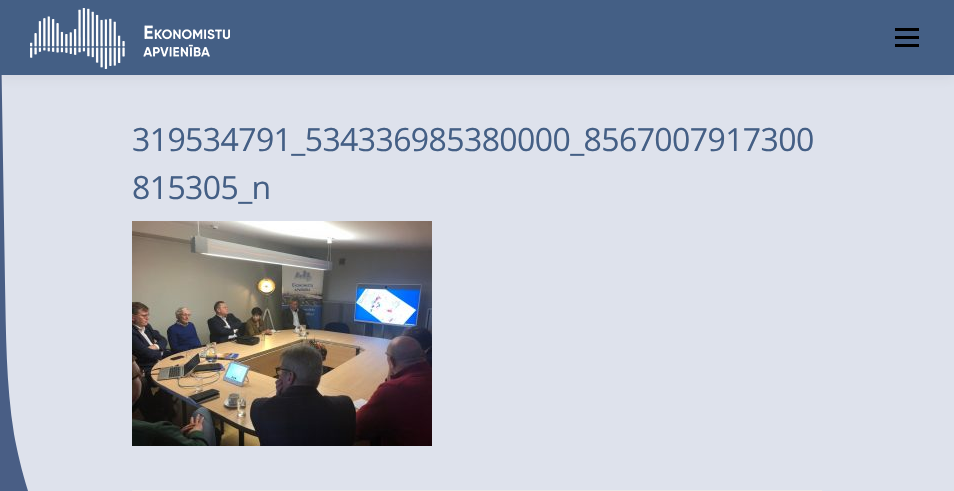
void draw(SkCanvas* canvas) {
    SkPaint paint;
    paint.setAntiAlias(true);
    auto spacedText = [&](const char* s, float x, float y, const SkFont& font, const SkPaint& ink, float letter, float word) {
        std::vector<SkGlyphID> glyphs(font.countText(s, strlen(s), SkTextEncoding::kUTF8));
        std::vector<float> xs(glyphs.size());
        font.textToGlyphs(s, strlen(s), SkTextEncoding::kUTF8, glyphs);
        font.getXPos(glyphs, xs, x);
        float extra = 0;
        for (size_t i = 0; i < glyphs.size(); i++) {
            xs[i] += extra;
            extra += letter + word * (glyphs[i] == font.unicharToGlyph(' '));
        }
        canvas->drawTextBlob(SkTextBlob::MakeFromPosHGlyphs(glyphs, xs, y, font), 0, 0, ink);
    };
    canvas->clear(0xFFDEE2EC);
    paint.setColor(0xFF495E85);
    canvas->drawPath(SkPathBuilder(SkPathFillType::kEvenOdd).moveTo(954, 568).lineTo(954, 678).lineTo(0, 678).lineTo(0, -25).lineTo(5, 283).cubicTo(6, 333, 6, 384, 14, 434).cubicTo(26, 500, 62, 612, 134, 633).cubicTo(146, 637, 158, 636, 171, 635).detach(), paint);
    paint.setColor(0x0F323232);
    paint.setMaskFilter(SkMaskFilter::MakeBlur(kNormal_SkBlurStyle, 5));
    canvas->drawRect(SkRect::MakeXYWH(0, 5, 954, 75), paint);
    paint.setMaskFilter(nullptr);
    paint.setColor(0xFF445F85);
    canvas->drawRect(SkRect::MakeXYWH(0, 0, 954, 75), paint);
    canvas->drawImageRect(SkImages::DeferredFromEncodedData(SkData::MakeFromFileName("img1.png")), SkRect::MakeXYWH(30, 8, 200, 61), SkSamplingOptions());
    paint.setColor(0xFF000000);
    canvas->drawRect(SkRect::MakeXYWH(895, 36, 24, 3), paint);
    canvas->drawRect(SkRect::MakeXYWH(895, 28, 24, 3), paint);
    canvas->drawRect(SkRect::MakeXYWH(895, 44, 24, 3), paint);
    SkFont font1(fontMgr->matchFamilyStyle("Open Sans", SkFontStyle::Normal()), 32);
    font1.setSubpixel(true);
    paint.setColor(0xFF445F85);
    spacedText("319534791_534336985380000_8567007917300", 132, 151, font1, paint, -0.6f, 0);
    spacedText("815305_n", 132, 199, font1, paint, -0.6f, 0);
    canvas->drawImageRect(SkImages::DeferredFromEncodedData(SkData::MakeFromFileName("img2.png")), SkRect::MakeXYWH(132, 221, 300, 225), SkSamplingOptions());
    paint.setColor(0xFFE9E9E9);
    canvas->drawRect(SkRect::MakeXYWH(132, 490, 690, 1), paint);
}
